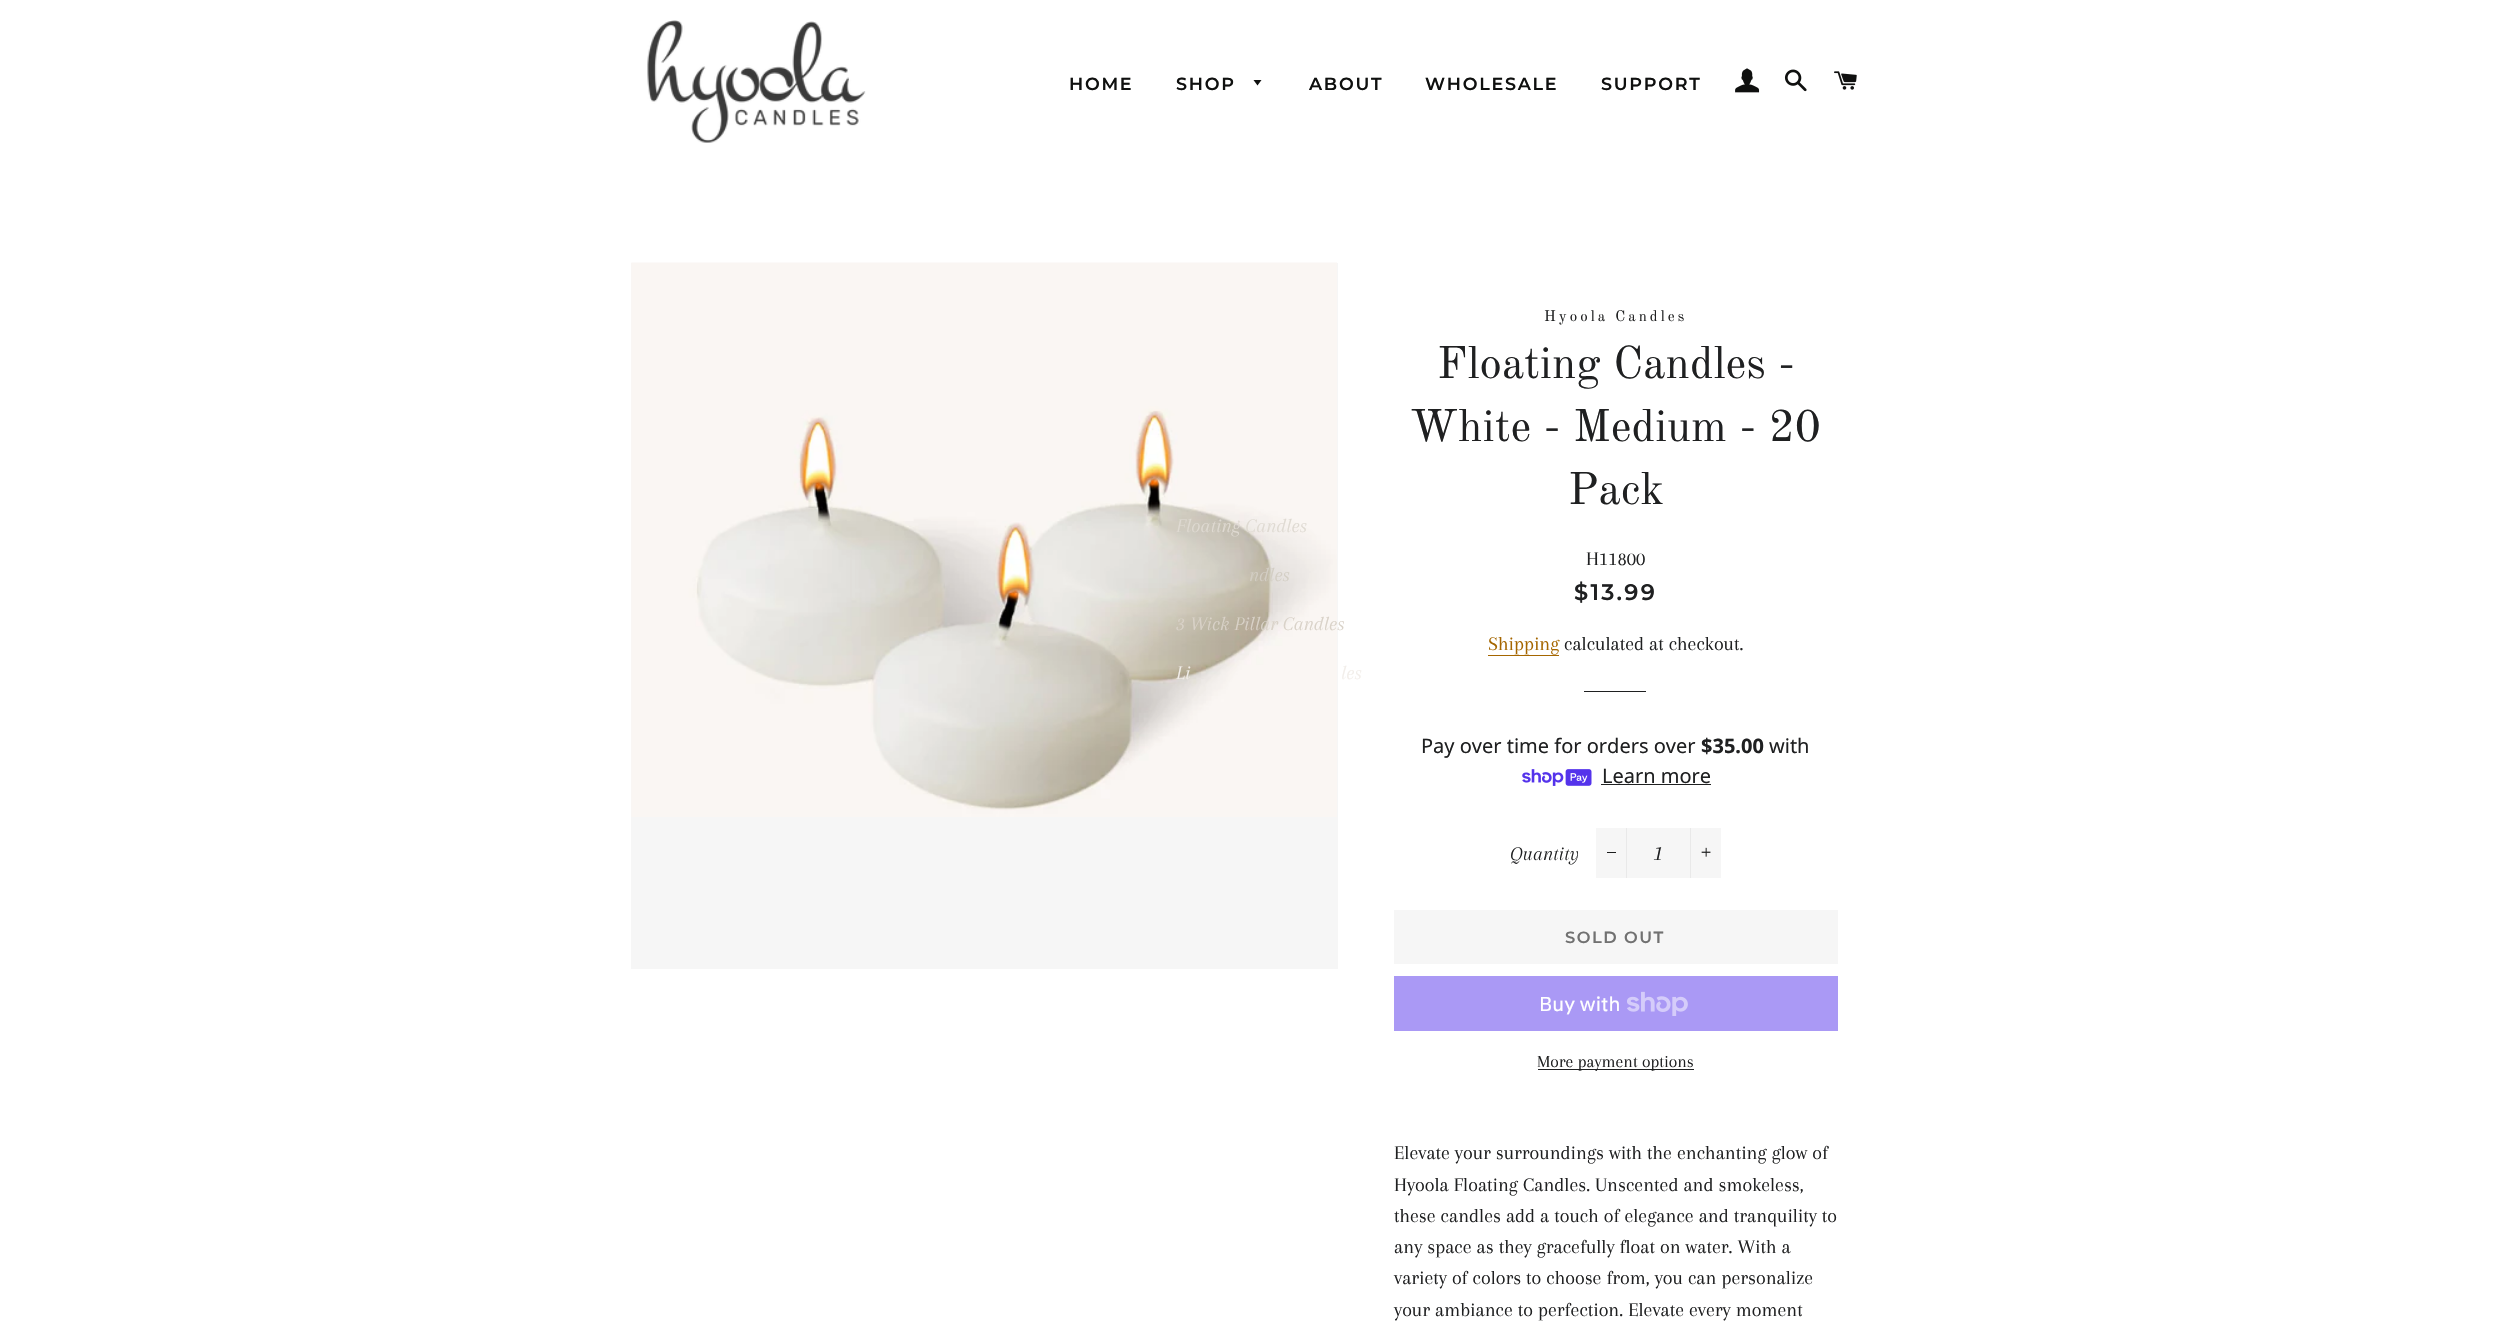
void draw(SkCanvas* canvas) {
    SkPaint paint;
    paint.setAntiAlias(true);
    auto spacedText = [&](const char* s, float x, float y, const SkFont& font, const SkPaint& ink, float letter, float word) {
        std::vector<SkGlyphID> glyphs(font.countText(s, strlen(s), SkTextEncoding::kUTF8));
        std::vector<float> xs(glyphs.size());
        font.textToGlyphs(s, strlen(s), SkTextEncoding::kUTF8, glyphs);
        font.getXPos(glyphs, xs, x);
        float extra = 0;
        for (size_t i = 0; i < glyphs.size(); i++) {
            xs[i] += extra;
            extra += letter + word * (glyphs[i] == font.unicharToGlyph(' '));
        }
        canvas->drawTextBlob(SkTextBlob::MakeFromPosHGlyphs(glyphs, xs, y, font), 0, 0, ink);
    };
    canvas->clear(0xFFFFFFFF);
    canvas->drawImageRect(SkImages::DeferredFromEncodedData(SkData::MakeFromFileName("img1.png")), SkRect::MakeXYWH(647, 20, 219, 123), SkSamplingOptions());
    SkFont font1(fontMgr->matchFamilyStyle("Montserrat", SkFontStyle(600, SkFontStyle::kNormal_Width, SkFontStyle::kUpright_Slant)), 17.5f);
    font1.setSubpixel(true);
    paint.setColor(0xFF0F100F);
    spacedText("HOME", 1069, 90, font1, paint, 1.75f, 0);
    spacedText("SHOP", 1176, 90, font1, paint, 1.75f, 0);
    canvas->drawPath(SkPathBuilder().moveTo(1253.5f, 80).lineTo(1257.5f, 85.5f).lineTo(1261.5f, 80).close().detach(), paint);
    paint.setColor(0xFFF6F6F6);
    canvas->drawRect(SkRect::MakeXYWH(631, 263, 707, 706), paint);
    canvas->drawImageRect(SkImages::DeferredFromEncodedData(SkData::MakeFromFileName("img5.png")), SkRect::MakeXYWH(631, 262, 706, 555), SkSamplingOptions());
    SkFont font2(fontMgr->matchFamilyStyle("Arapey", SkFontStyle::Italic()), 20);
    font2.setSubpixel(true);
    paint.setColor(0xFFDFDAD2);
    canvas->drawString("Floating Candles", 1176, 532, font2, paint);
    paint.setColor(0xFFD3CEC4);
    canvas->drawString("ndles", 1249, 581, font2, paint);
    paint.setColor(0xFFD9D2C8);
    canvas->drawString("3 Wick Pillar Candles", 1176, 630, font2, paint);
    paint.setColor(0xFFF2EEEA);
    canvas->drawString("Li", 1176, 679, font2, paint);
    canvas->drawString("les", 1341, 679, font2, paint);
    canvas->drawImageRect(SkImages::DeferredFromEncodedData(SkData::MakeFromFileName("img2.png")), SkRect::MakeXYWH(1735, 68, 25, 25), SkSamplingOptions());
    canvas->drawImageRect(SkImages::DeferredFromEncodedData(SkData::MakeFromFileName("img3.png")), SkRect::MakeXYWH(1784, 69, 23, 23), SkSamplingOptions());
    canvas->drawImageRect(SkImages::DeferredFromEncodedData(SkData::MakeFromFileName("img4.png")), SkRect::MakeXYWH(1834, 71, 23, 19), SkSamplingOptions());
    paint.setColor(0xFF0F100F);
    spacedText("ABOUT", 1309, 90, font1, paint, 1.75f, 0);
    spacedText("WHOLESALE", 1425, 90, font1, paint, 1.75f, 0);
    spacedText("SUPPORT", 1601, 90, font1, paint, 1.75f, 0);
    SkFont font3(fontMgr->matchFamilyStyle("Old Standard TT", SkFontStyle::Normal()), 15);
    font3.setSubpixel(true);
    paint.setColor(0xFF1F2021);
    spacedText("Hyoola Candles", 1544, 321, font3, paint, 3, 0);
    SkFont font4(fontMgr->matchFamilyStyle("Old Standard TT", SkFontStyle::Normal()), 45);
    font4.setSubpixel(true);
    canvas->drawString("Floating Candles -", 1437, 378, font4, paint);
    canvas->drawString("White - Medium - 20", 1410, 441, font4, paint);
    canvas->drawString("Pack", 1568, 504, font4, paint);
    SkFont font5(fontMgr->matchFamilyStyle("Arapey", SkFontStyle::Normal()), 20);
    font5.setSubpixel(true);
    canvas->drawString("H11800", 1586, 565, font5, paint);
    SkFont font6(fontMgr->matchFamilyStyle("Montserrat", SkFontStyle(600, SkFontStyle::kNormal_Width, SkFontStyle::kUpright_Slant)), 22.5f);
    font6.setSubpixel(true);
    spacedText("$13.99", 1574, 600, font6, paint, 2.25f, 0);
    paint.setColor(0xFFA56600);
    canvas->drawString("Shipping", 1488, 650, font5, paint);
    canvas->drawRect(SkRect::MakeXYWH(1488, 655, 71, 1), paint);
    paint.setColor(0xFF1F2021);
    canvas->drawString("calculated at checkout.", 1564, 650, font5, paint);
    canvas->drawRect(SkRect::MakeXYWH(1584, 691, 62, 1), paint);
    SkFont font7(fontMgr->matchFamilyStyle("Noto Sans", SkFontStyle::Normal()), 20);
    font7.setSubpixel(true);
    canvas->drawString("Pay over time for orders over", 1421, 753, font7, paint);
    SkFont font8(fontMgr->matchFamilyStyle("Noto Sans", SkFontStyle::Bold()), 20);
    font8.setSubpixel(true);
    canvas->drawString("$35.00", 1701, 753, font8, paint);
    canvas->drawString("with", 1769, 753, font7, paint);
    canvas->drawImageRect(SkImages::DeferredFromEncodedData(SkData::MakeFromFileName("img6.png")), SkRect::MakeXYWH(1522, 769, 70, 17), SkSamplingOptions());
    canvas->drawString("Learn more", 1602, 783, font7, paint);
    canvas->drawRect(SkRect::MakeXYWH(1601, 784, 110, 1), paint);
    canvas->drawString("Quantity", 1510, 860, font2, paint);
    paint.setColor(0xFFF6F6F6);
    canvas->drawRect(SkRect::MakeXYWH(1596, 828, 125, 50), paint);
    paint.setColor(0xFFE9E9E9);
    canvas->drawRect(SkRect::MakeXYWH(1626, 828, 1, 50), paint);
    paint.setColor(0xFF1C1D1D);
    canvas->drawRect(SkRect::MakeXYWH(1607, 852, 9, 1), paint);
    SkFont font9(fontMgr->matchFamilyStyle("Arapey", SkFontStyle::Italic()), 22.5f);
    font9.setSubpixel(true);
    paint.setColor(0xFF1F2021);
    canvas->drawString("1", 1655, 860, font9, paint);
    paint.setColor(0xFFE9E9E9);
    canvas->drawRect(SkRect::MakeXYWH(1690, 828, 1, 50), paint);
    canvas->drawImageRect(SkImages::DeferredFromEncodedData(SkData::MakeFromFileName("img7.png")), SkRect::MakeXYWH(1701, 847, 10, 10), SkSamplingOptions());
    paint.setColor(0xFFF6F6F6);
    canvas->drawRect(SkRect::MakeXYWH(1394, 910, 444, 54), paint);
    SkFont font10(fontMgr->matchFamilyStyle("Montserrat", SkFontStyle(600, SkFontStyle::kNormal_Width, SkFontStyle::kUpright_Slant)), 16.25f);
    font10.setSubpixel(true);
    paint.setColor(0xFF717171);
    spacedText("SOLD OUT", 1565, 943, font10, paint, 1.5f, 0);
    paint.setColor(0xFFAA99F5);
    canvas->drawRect(SkRect::MakeXYWH(1394, 976, 444, 55), paint);
    SkFont font11(fontMgr->matchFamilyStyle("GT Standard", SkFontStyle::Normal()), 20);
    font11.setSubpixel(true);
    paint.setColor(0xFFFFFFFF);
    canvas->drawString("Buy with", 1539, 1011, font11, paint);
    canvas->drawImageRect(SkImages::DeferredFromEncodedData(SkData::MakeFromFileName("img8.png")), SkRect::MakeXYWH(1627, 991, 61, 25), SkSamplingOptions());
    paint.setColor(0xFF1F2021);
    canvas->drawRect(SkRect::MakeXYWH(1538, 1069, 156, 1), paint);
    SkFont font12(fontMgr->matchFamilyStyle("Arapey", SkFontStyle::Normal()), 17.5f);
    font12.setSubpixel(true);
    canvas->drawString("More payment options", 1537, 1067, font12, paint);
    canvas->drawString("Elevate your surroundings with the enchanting glow of", 1394, 1159, font5, paint);
    canvas->drawString("Hyoola Floating Candles. Unscented and smokeless,", 1394, 1191, font5, paint);
    canvas->drawString("these candles add a touch of elegance and tranquility to", 1394, 1222, font5, paint);
    canvas->drawString("any space as they gracefully float on water. With a", 1394, 1253, font5, paint);
    canvas->drawString("variety of colors to choose from, you can personalize", 1394, 1284, font5, paint);
    canvas->drawString("your ambiance to perfection. Elevate every moment", 1394, 1316, font5, paint);
}
